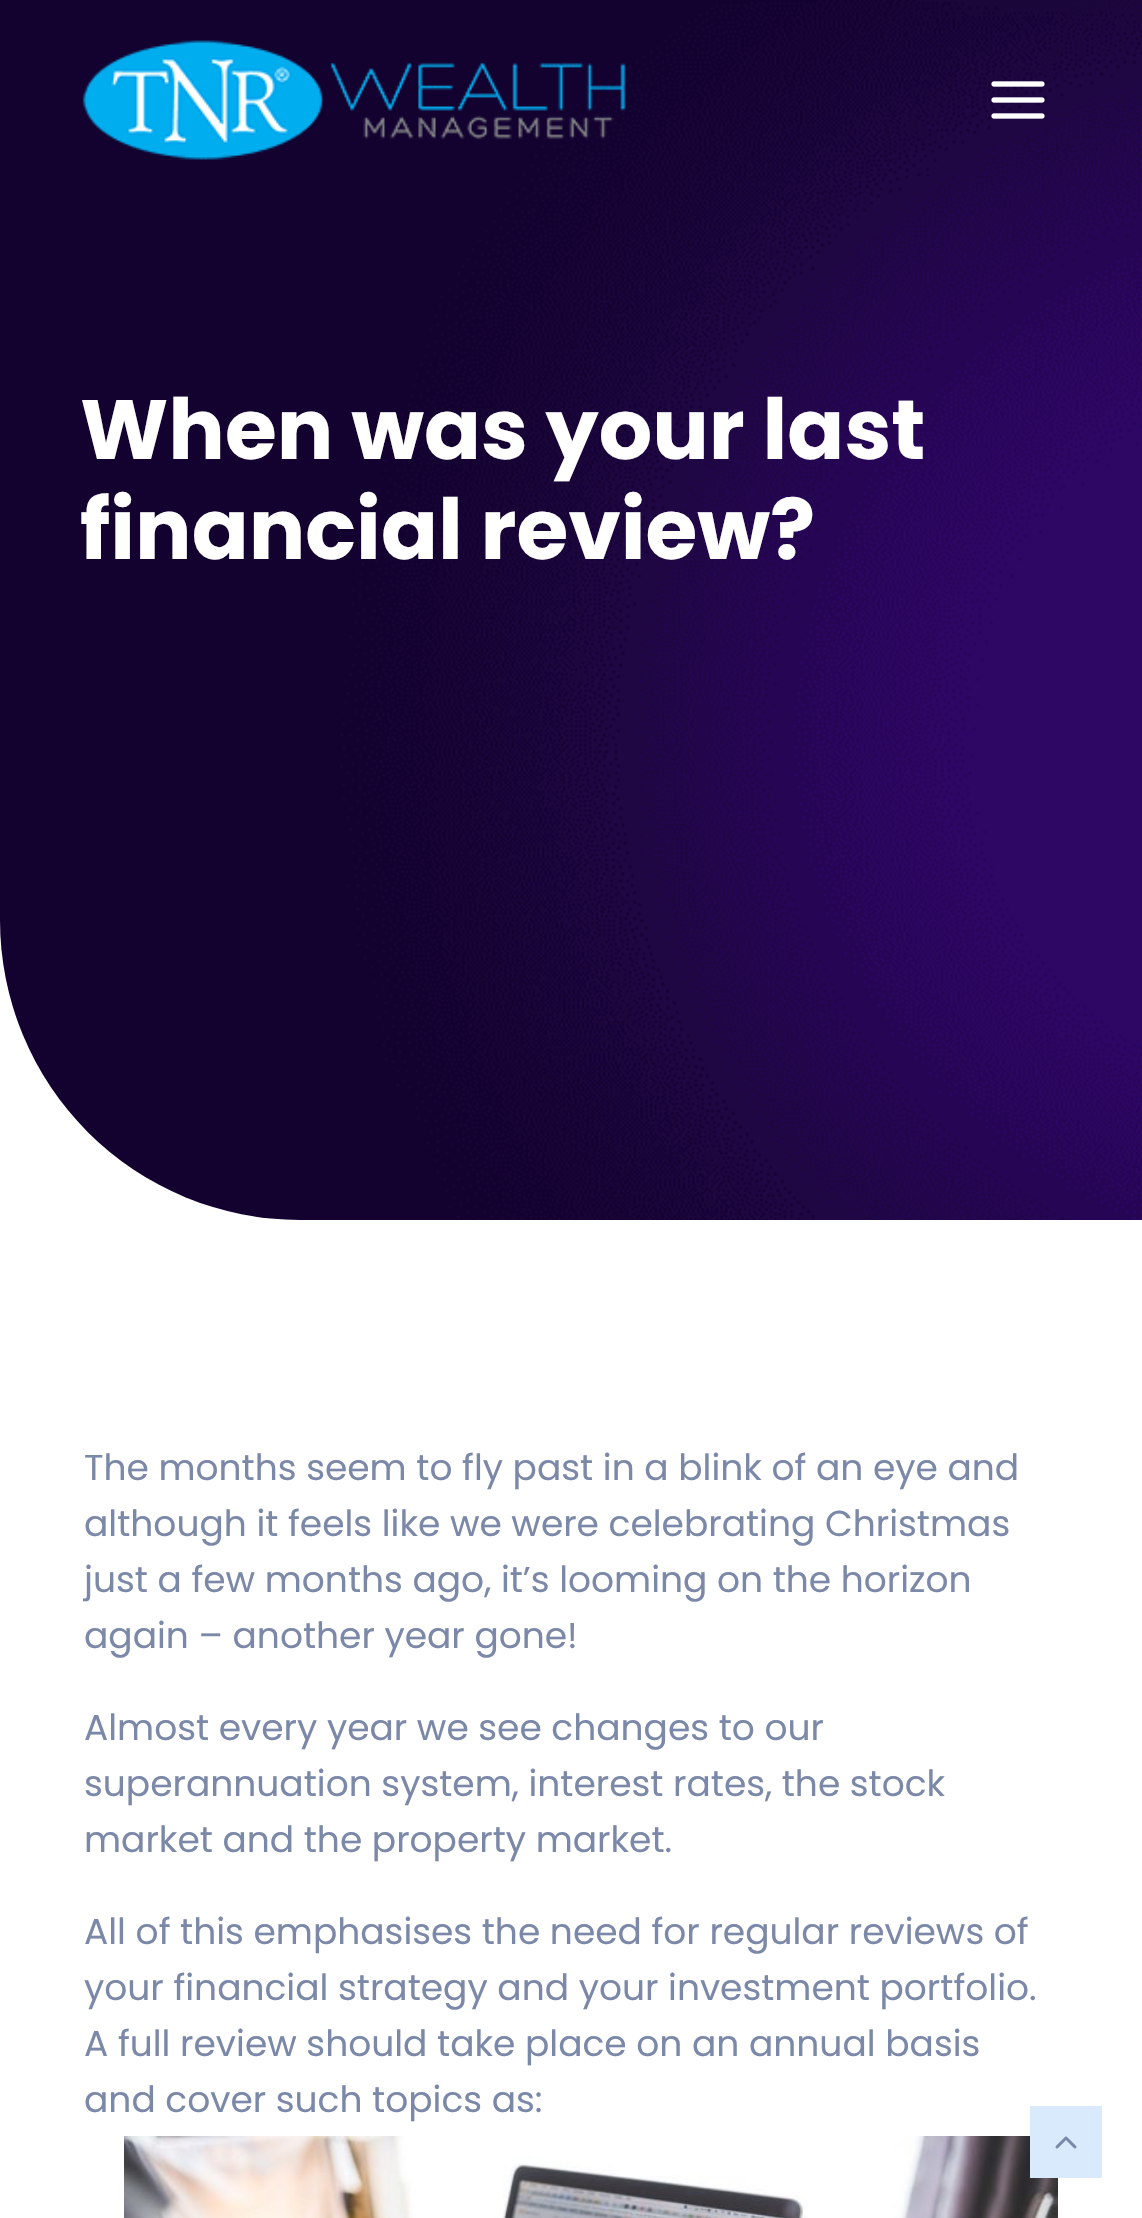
void draw(SkCanvas* canvas) {
    SkPaint paint;
    paint.setAntiAlias(true);
    canvas->clear(0xFFFFFFFF);
    canvas->drawImageRect(SkImages::DeferredFromEncodedData(SkData::MakeFromFileName("img3.png")), SkRect::MakeXYWH(0, 0, 1142, 1220), SkSamplingOptions());
    canvas->drawImageRect(SkImages::DeferredFromEncodedData(SkData::MakeFromFileName("img1.png")), SkRect::MakeXYWH(82, 40, 544, 120), SkSamplingOptions());
    canvas->drawImageRect(SkImages::DeferredFromEncodedData(SkData::MakeFromFileName("img2.png")), SkRect::MakeXYWH(991, 81, 54, 38), SkSamplingOptions());
    SkFont font1(fontMgr->matchFamilyStyle("Poppins", SkFontStyle::Bold()), 84);
    font1.setSubpixel(true);
    paint.setColor(0xFFFFFFFF);
    canvas->drawString("When was your last", 80, 459, font1, paint);
    canvas->drawString("financial review?", 80, 559, font1, paint);
    SkFont font2(fontMgr->matchFamilyStyle("Poppins", SkFontStyle::Normal()), 36);
    font2.setSubpixel(true);
    paint.setColor(0xFF7B88A8);
    canvas->drawString("The months seem to fly past in a blink of an eye and", 84, 1480, font2, paint);
    canvas->drawString("although it feels like we were celebrating Christmas", 84, 1536, font2, paint);
    canvas->drawString("just a few months ago, it’s looming on the horizon", 84, 1592, font2, paint);
    canvas->drawString("again – another year gone!", 84, 1648, font2, paint);
    canvas->drawString("Almost every year we see changes to our", 84, 1740, font2, paint);
    canvas->drawString("superannuation system, interest rates, the stock", 84, 1796, font2, paint);
    canvas->drawString("market and the property market.", 84, 1852, font2, paint);
    canvas->drawString("All of this emphasises the need for regular reviews of", 84, 1944, font2, paint);
    canvas->drawString("your financial strategy and your investment portfolio.", 84, 2000, font2, paint);
    canvas->drawString("A full review should take place on an annual basis", 84, 2056, font2, paint);
    canvas->drawString("and cover such topics as:", 84, 2112, font2, paint);
    canvas->drawImageRect(SkImages::DeferredFromEncodedData(SkData::MakeFromFileName("img4.png")), SkRect::MakeXYWH(124, 2136, 934, 82), SkSamplingOptions());
    paint.setColor(0xFFD8EAFC);
    canvas->drawRect(SkRect::MakeXYWH(1030, 2106, 72, 72), paint);
    canvas->drawImageRect(SkImages::DeferredFromEncodedData(SkData::MakeFromFileName("img5.png")), SkRect::MakeXYWH(1055, 2136, 22, 13), SkSamplingOptions());
}
